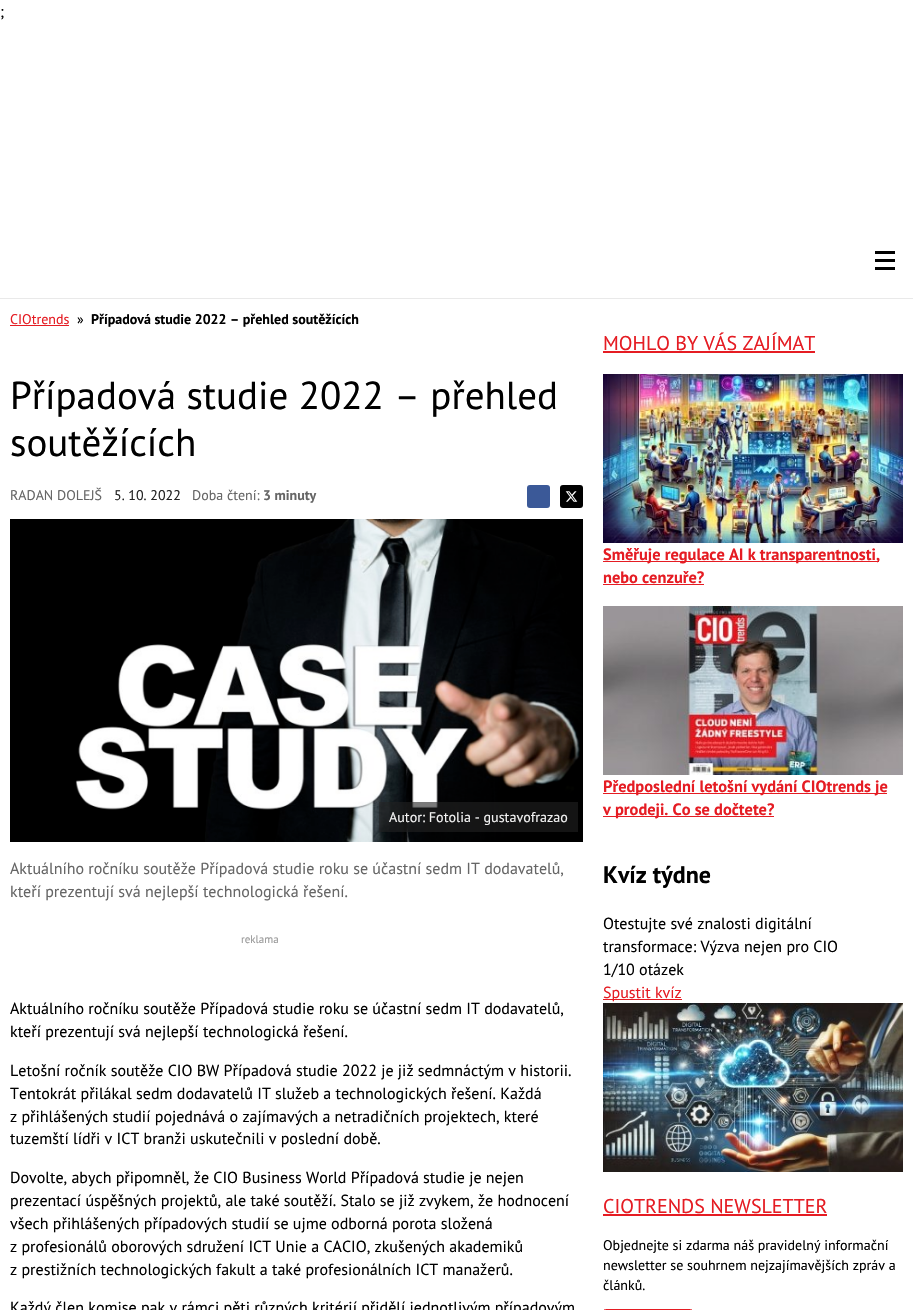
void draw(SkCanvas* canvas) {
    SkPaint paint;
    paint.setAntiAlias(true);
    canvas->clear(0xFFFFFFFF);
    SkFont font1(fontMgr->matchFamilyStyle("PT Sans", SkFontStyle::Normal()), 16);
    font1.setSubpixel(true);
    paint.setColor(0xFF000000);
    canvas->drawString(";", 0, 17, font1, paint);
    paint.setColor(0xFFE9E9E9);
    canvas->drawRect(SkRect::MakeXYWH(0, 298, 913, 1), paint);
    paint.setColor(0xFF000000);
    canvas->drawRect(SkRect::MakeXYWH(875, 259, 20, 3), paint);
    canvas->drawRect(SkRect::MakeXYWH(875, 251, 20, 3), paint);
    canvas->drawRect(SkRect::MakeXYWH(875, 267, 20, 3), paint);
    SkFont font2(fontMgr->matchFamilyStyle("PT Sans", SkFontStyle::Normal()), 14);
    font2.setSubpixel(true);
    paint.setColor(0xFFE51C23);
    canvas->drawString("CIOtrends", 10, 324, font2, paint);
    canvas->drawRect(SkRect::MakeXYWH(10, 325, 59, 1), paint);
    paint.setColor(0xFF000000);
    canvas->drawString("»", 77, 324, font2, paint);
    SkFont font3(fontMgr->matchFamilyStyle("PT Sans", SkFontStyle::Bold()), 14);
    font3.setSubpixel(true);
    canvas->drawString("Případová studie 2022 – přehled soutěžících", 91, 324, font3, paint);
    SkFont font4(fontMgr->matchFamilyStyle("PT Sans", SkFontStyle::Normal()), 39);
    font4.setSubpixel(true);
    canvas->drawString("Případová studie 2022 – přehled", 10, 409, font4, paint);
    canvas->drawString("soutěžících", 10, 456, font4, paint);
    paint.setColor(0xFF666666);
    canvas->drawString("RADAN DOLEJŠ", 10, 500, font2, paint);
    paint.setColor(0xFF222222);
    canvas->drawString("5. 10. 2022", 114, 500, font2, paint);
    paint.setColor(0xFF666666);
    canvas->drawString("Doba čtení:", 192, 500, font2, paint);
    canvas->drawString("3 minuty", 263, 500, font3, paint);
    paint.setColor(0xFF3B5998);
    canvas->drawRoundRect(SkRect::MakeXYWH(527, 485, 23, 23), 3, 3, paint);
    paint.setColor(0xFF000000);
    canvas->drawRoundRect(SkRect::MakeXYWH(560, 485, 23, 23), 3, 3, paint);
    canvas->drawImageRect(SkImages::DeferredFromEncodedData(SkData::MakeFromFileName("img1.png")), SkRect::MakeXYWH(565, 491, 13, 11), SkSamplingOptions());
    canvas->drawImageRect(SkImages::DeferredFromEncodedData(SkData::MakeFromFileName("img2.png")), SkRect::MakeXYWH(10, 519, 573, 323), SkSamplingOptions());
    paint.setColor(0x99222222);
    canvas->drawRect(SkRect::MakeXYWH(379, 802, 199, 30), paint);
    SkFont font5(fontMgr->matchFamilyStyle("PT Sans", SkFontStyle::Normal()), 14.1f);
    font5.setSubpixel(true);
    paint.setColor(0xFFF2F2F2);
    canvas->drawString("Autor: Fotolia - gustavofrazao", 389, 822, font5, paint);
    paint.setColor(0xFF666666);
    canvas->drawString("Aktuálního ročníku soutěže Případová studie roku se účastní sedm IT dodavatelů,", 10, 874, font1, paint);
    canvas->drawString("kteří prezentují svá nejlepší technologická řešení.", 10, 897, font1, paint);
    SkFont font6(fontMgr->matchFamilyStyle("PT Sans", SkFontStyle::Normal()), 11);
    font6.setSubpixel(true);
    paint.setColor(0xFF999999);
    canvas->drawString("reklama", 241, 943, font6, paint);
    paint.setColor(0xFF000000);
    canvas->drawString("Aktuálního ročníku soutěže Případová studie roku se účastní sedm IT dodavatelů,", 10, 1014, font1, paint);
    canvas->drawString("kteří prezentují svá nejlepší technologická řešení.", 10, 1037, font1, paint);
    canvas->drawString("Letošní ročník soutěže CIO BW Případová studie 2022 je již sedmnáctým v historii.", 10, 1076, font1, paint);
    canvas->drawString("Tentokrát přilákal sedm dodavatelů IT služeb a technologických řešení. Každá", 10, 1099, font1, paint);
    canvas->drawString("z přihlášených studií pojednává o zajímavých a netradičních projektech, které", 10, 1122, font1, paint);
    canvas->drawString("tuzemští lídři v ICT branži uskutečnili v poslední době.", 10, 1144, font1, paint);
    canvas->drawString("Dovolte, abych připomněl, že CIO Business World Případová studie je nejen", 10, 1183, font1, paint);
    canvas->drawString("prezentací úspěšných projektů, ale také soutěží. Stalo se již zvykem, že hodnocení", 10, 1206, font1, paint);
    canvas->drawString("všech přihlášených případových studií se ujme odborná porota složená", 10, 1229, font1, paint);
    canvas->drawString("z profesionálů oborových sdružení ICT Unie a CACIO, zkušených akademiků", 10, 1252, font1, paint);
    canvas->drawString("z prestižních technologických fakult a také profesionálních ICT manažerů.", 10, 1275, font1, paint);
    canvas->drawString("Každý člen komise pak v rámci pěti různých kritérií přidělí jednotlivým případovým", 10, 1313, font1, paint);
    SkFont font7(fontMgr->matchFamilyStyle("PT Sans", SkFontStyle::Normal()), 20);
    font7.setSubpixel(true);
    paint.setColor(0xFFE51C23);
    canvas->drawString("MOHLO BY VÁS ZAJÍMAT", 603, 350, font7, paint);
    canvas->drawRect(SkRect::MakeXYWH(603, 351, 212, 2), paint);
    canvas->drawImageRect(SkImages::DeferredFromEncodedData(SkData::MakeFromFileName("img3.png")), SkRect::MakeXYWH(603, 374, 300, 169), SkSamplingOptions());
    canvas->drawRect(SkRect::MakeXYWH(603, 561, 276, 1), paint);
    SkFont font8(fontMgr->matchFamilyStyle("PT Sans", SkFontStyle::Bold()), 16.4f);
    font8.setSubpixel(true);
    canvas->drawString("Směřuje regulace AI k transparentnosti,", 603, 560, font8, paint);
    canvas->drawString("nebo cenzuře?", 603, 583, font8, paint);
    canvas->drawRect(SkRect::MakeXYWH(603, 584, 101, 1), paint);
    canvas->drawImageRect(SkImages::DeferredFromEncodedData(SkData::MakeFromFileName("img4.png")), SkRect::MakeXYWH(603, 606, 300, 169), SkSamplingOptions());
    canvas->drawRect(SkRect::MakeXYWH(603, 793, 284, 1), paint);
    canvas->drawString("Předposlední letošní vydání CIOtrends je", 603, 792, font8, paint);
    canvas->drawRect(SkRect::MakeXYWH(603, 816, 171, 1), paint);
    canvas->drawString("v prodeji. Co se dočtete?", 603, 815, font8, paint);
    SkFont font9(fontMgr->matchFamilyStyle("PT Sans", SkFontStyle::Bold()), 24);
    font9.setSubpixel(true);
    paint.setColor(0xFF000000);
    canvas->drawString("Kvíz týdne", 603, 883, font9, paint);
    canvas->drawString("Otestujte své znalosti digitální", 603, 929, font1, paint);
    canvas->drawString("transformace: Výzva nejen pro CIO", 603, 952, font1, paint);
    canvas->drawString("1/10 otázek", 603, 975, font1, paint);
    paint.setColor(0xFFE51C23);
    canvas->drawRect(SkRect::MakeXYWH(603, 999, 79, 1), paint);
    canvas->drawString("Spustit kvíz", 603, 998, font1, paint);
    canvas->drawImageRect(SkImages::DeferredFromEncodedData(SkData::MakeFromFileName("img5.png")), SkRect::MakeXYWH(603, 1003, 300, 169), SkSamplingOptions());
    canvas->drawString("CIOTRENDS NEWSLETTER", 603, 1213, font7, paint);
    canvas->drawRect(SkRect::MakeXYWH(603, 1214, 224, 2), paint);
    paint.setColor(0xFF000000);
    canvas->drawString("Objednejte si zdarma náš pravidelný informační", 603, 1250, font2, paint);
    canvas->drawString("newsletter se souhrnem nejzajímavějších zpráv a", 603, 1270, font2, paint);
    canvas->drawString("článků.", 603, 1290, font2, paint);
    paint.setStyle(SkPaint::kStroke_Style);
    paint.setStrokeWidth(1);
    paint.setColor(0xFFE51C23);
    canvas->drawRoundRect(SkRect::MakeXYWH(603.5f, 1309.5f, 89, 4), 2.5f, 2.5f, paint);
}
